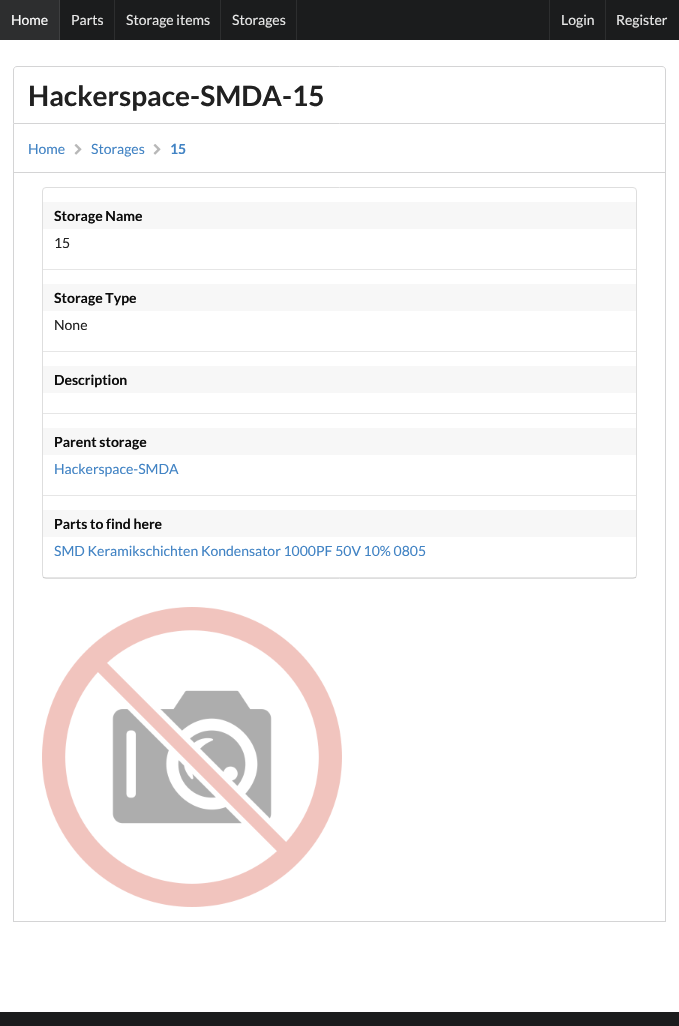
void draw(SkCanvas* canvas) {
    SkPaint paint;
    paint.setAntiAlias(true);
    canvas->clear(0xFFFFFFFF);
    paint.setColor(0xFF1B1C1D);
    canvas->drawRect(SkRect::MakeXYWH(60, 0, 619, 40), paint);
    paint.setColor(0xFF2D2E2F);
    canvas->drawRect(SkRect::MakeXYWH(0, 0, 59, 40), paint);
    SkFont font1(fontMgr->matchFamilyStyle("Lato", SkFontStyle::Normal()), 14);
    font1.setSubpixel(true);
    paint.setColor(0xFFFFFFFF);
    canvas->drawString("Home", 11, 25, font1, paint);
    paint.setColor(0xFF3E3F40);
    canvas->drawRect(SkRect::MakeXYWH(59, 0, 1, 40), paint);
    paint.setColor(0xFFE8E8E8);
    canvas->drawString("Parts", 71, 25, font1, paint);
    paint.setColor(0xFF2D2E2F);
    canvas->drawRect(SkRect::MakeXYWH(114, 0, 1, 40), paint);
    paint.setColor(0xFFE8E8E8);
    canvas->drawString("Storage items", 126, 25, font1, paint);
    paint.setColor(0xFF2D2E2F);
    canvas->drawRect(SkRect::MakeXYWH(220, 0, 1, 40), paint);
    paint.setColor(0xFFE8E8E8);
    canvas->drawString("Storages", 232, 25, font1, paint);
    paint.setColor(0xFF2D2E2F);
    canvas->drawRect(SkRect::MakeXYWH(296, 0, 1, 40), paint);
    canvas->drawRect(SkRect::MakeXYWH(549, 0, 1, 40), paint);
    paint.setColor(0xFFE8E8E8);
    canvas->drawString("Login", 561, 25, font1, paint);
    paint.setColor(0xFF2D2E2F);
    canvas->drawRect(SkRect::MakeXYWH(605, 0, 1, 40), paint);
    paint.setColor(0xFFE8E8E8);
    canvas->drawString("Register", 616, 25, font1, paint);
    paint.setStyle(SkPaint::kStroke_Style);
    paint.setStrokeWidth(1);
    paint.setColor(0xFFD4D4D5);
    canvas->drawPath(SkPathBuilder().moveTo(17, 66.5f).lineTo(662, 66.5f).cubicTo(664, 66.5f, 665.5f, 68, 665.5f, 70).lineTo(665.5f, 123.5f).lineTo(13.5f, 123.5f).lineTo(13.5f, 70).cubicTo(13.5f, 68, 15, 66.5f, 17, 66.5f).close().detach(), paint);
    SkFont font2(fontMgr->matchFamilyStyle("Lato", SkFontStyle::Bold()), 28);
    font2.setSubpixel(true);
    paint.setStyle(SkPaint::kFill_Style);
    paint.setColor(0xFF212121);
    canvas->drawString("Hackerspace-SMDA-15", 28, 106, font2, paint);
    paint.setColor(0xFFD4D4D5);
    canvas->drawRect(SkRect::MakeXYWH(665, 124, 1, 798), paint);
    canvas->drawRect(SkRect::MakeXYWH(13, 172, 653, 1), paint);
    canvas->drawRect(SkRect::MakeXYWH(13, 124, 1, 49), paint);
    paint.setColor(0xFF4183C4);
    canvas->drawString("Home", 28, 154, font1, paint);
    canvas->drawImageRect(SkImages::DeferredFromEncodedData(SkData::MakeFromFileName("img1.png")), SkRect::MakeXYWH(74, 144, 8, 11), SkSamplingOptions());
    canvas->drawString("Storages", 91, 154, font1, paint);
    canvas->drawImageRect(SkImages::DeferredFromEncodedData(SkData::MakeFromFileName("img1.png")), SkRect::MakeXYWH(153, 144, 8, 11), SkSamplingOptions());
    SkFont font3(fontMgr->matchFamilyStyle("Lato", SkFontStyle::Bold()), 14);
    font3.setSubpixel(true);
    canvas->drawString("15", 170, 154, font3, paint);
    paint.setColor(0xFFD4D4D5);
    canvas->drawRect(SkRect::MakeXYWH(13, 921, 653, 1), paint);
    canvas->drawRect(SkRect::MakeXYWH(13, 173, 1, 749), paint);
    paint.setStyle(SkPaint::kStroke_Style);
    paint.setColor(0xFFDEDEDE);
    canvas->drawRoundRect(SkRect::MakeXYWH(42.5f, 187.5f, 594, 391), 3.5f, 3.5f, paint);
    paint.setStyle(SkPaint::kFill_Style);
    paint.setColor(0xFFE6E6E6);
    canvas->drawRect(SkRect::MakeXYWH(43, 269, 593, 1), paint);
    paint.setColor(0xFFF7F7F7);
    canvas->drawRect(SkRect::MakeXYWH(43, 202, 593, 27), paint);
    paint.setColor(0xFF0C0C0C);
    canvas->drawString("Storage Name", 54, 221, font3, paint);
    paint.setColor(0xFF212121);
    canvas->drawString("15", 54, 248, font1, paint);
    paint.setColor(0xFFE6E6E6);
    canvas->drawRect(SkRect::MakeXYWH(43, 351, 593, 1), paint);
    paint.setColor(0xFFF7F7F7);
    canvas->drawRect(SkRect::MakeXYWH(43, 284, 593, 27), paint);
    paint.setColor(0xFF0C0C0C);
    canvas->drawString("Storage Type", 54, 303, font3, paint);
    paint.setColor(0xFF212121);
    canvas->drawString("None", 54, 330, font1, paint);
    paint.setColor(0xFFE6E6E6);
    canvas->drawRect(SkRect::MakeXYWH(43, 413, 593, 1), paint);
    paint.setColor(0xFFF7F7F7);
    canvas->drawRect(SkRect::MakeXYWH(43, 366, 593, 27), paint);
    paint.setColor(0xFF0C0C0C);
    canvas->drawString("Description", 54, 385, font3, paint);
    paint.setColor(0xFFE6E6E6);
    canvas->drawRect(SkRect::MakeXYWH(43, 495, 593, 1), paint);
    paint.setColor(0xFFF7F7F7);
    canvas->drawRect(SkRect::MakeXYWH(43, 428, 593, 27), paint);
    paint.setColor(0xFF0C0C0C);
    canvas->drawString("Parent storage", 54, 447, font3, paint);
    paint.setColor(0xFF4183C4);
    canvas->drawString("Hackerspace-SMDA", 54, 474, font1, paint);
    paint.setColor(0x1A000000);
    canvas->drawRect(SkRect::MakeXYWH(43, 577, 593, 1), paint);
    paint.setColor(0xFFF7F7F7);
    canvas->drawRect(SkRect::MakeXYWH(43, 510, 593, 27), paint);
    paint.setColor(0xFF0C0C0C);
    canvas->drawString("Parts to find here", 54, 529, font3, paint);
    paint.setColor(0xFF4183C4);
    canvas->drawString("SMD Keramikschichten Kondensator 1000PF 50V 10% 0805", 54, 556, font1, paint);
    canvas->drawImageRect(SkImages::DeferredFromEncodedData(SkData::MakeFromFileName("img2.png")), SkRect::MakeXYWH(42, 607, 300, 300), SkSamplingOptions());
    paint.setColor(0xFF1B1C1D);
    canvas->drawRect(SkRect::MakeXYWH(0, 1012, 679, 14), paint);
}
